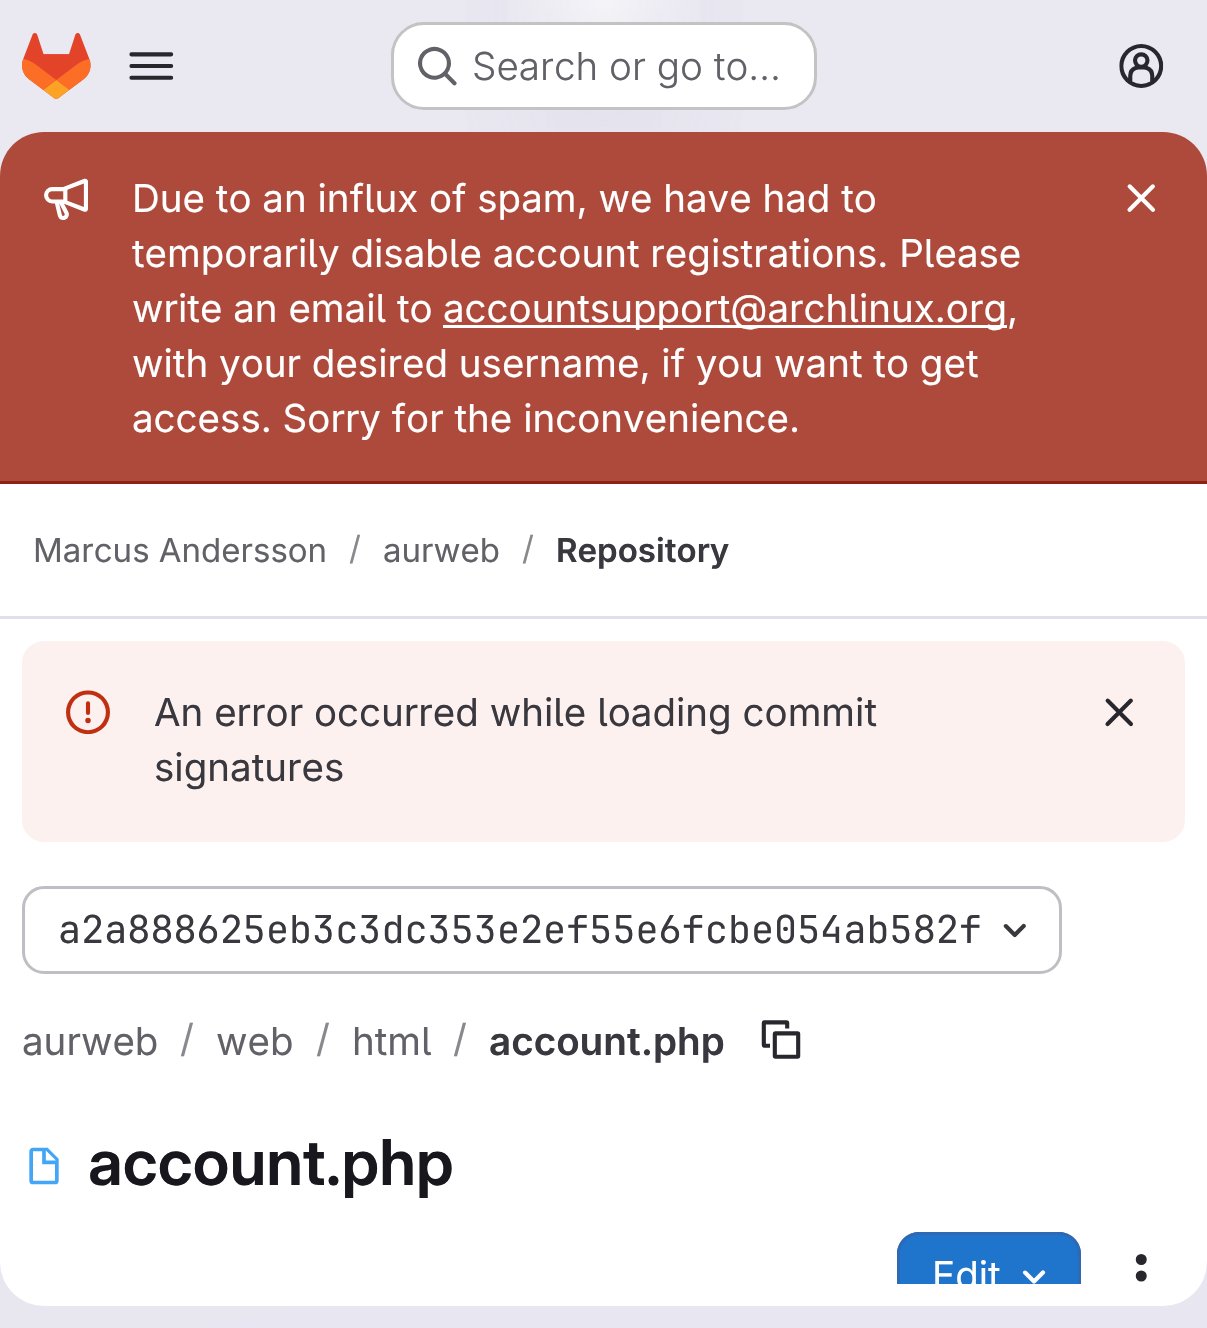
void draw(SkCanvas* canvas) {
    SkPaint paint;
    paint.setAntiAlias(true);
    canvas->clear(0xFFFFFFFF);
    {
        const SkColor colors[] = {0xFFE8E6F0, 0xFFEAE9F2};
        const float stops[] = {0, 0.7f};
        const SkPoint ends[] = {{735, 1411}, {472, -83}};
        paint.setShader(SkGradientShader::MakeLinear(ends, colors, stops, 2, SkTileMode::kClamp));
        paint.setAlpha(255);
    }
    canvas->drawRect(SkRect::MakeXYWH(0, 0, 1207, 1328), paint);
    {
        const SkColor colors[] = {0xFFE4E2ED, 0x00E4E2ED};
        const float stops[] = {0, 0.32f};
        SkMatrix m = SkMatrix::Translate(604, 0).preScale(604, 1328);
        paint.setShader(SkGradientShader::MakeRadial({0, 0}, 1, colors, stops, 2, SkTileMode::kClamp, 0, &m));
        paint.setAlpha(255);
    }
    canvas->drawRect(SkRect::MakeXYWH(466, 0, 277, 132), paint);
    {
        const SkColor colors[] = {0xFFE4E2EC, 0x00E4E2EC};
        const float stops[] = {0, 0.23f};
        SkMatrix m = SkMatrix::Translate(604, 0).preScale(604, 1328);
        paint.setShader(SkGradientShader::MakeRadial({0, 0}, 1, colors, stops, 2, SkTileMode::kClamp, 0, &m));
        paint.setAlpha(255);
    }
    canvas->drawRect(SkRect::MakeXYWH(546, 9, 116, 118), paint);
    {
        const SkColor colors[] = {0x99FFFFFF, 0x00FFFFFF};
        const float stops[] = {0, 0.08f};
        paint.setShader(SkGradientShader::MakeRadial({604, 0}, 1459, colors, stops, 2, SkTileMode::kClamp));
        paint.setAlpha(255);
    }
    canvas->drawRect(SkRect::MakeXYWH(507, 0, 194, 99), paint);
    canvas->drawImageRect(SkImages::DeferredFromEncodedData(SkData::MakeFromFileName("img1.png")), SkRect::MakeXYWH(22, 33, 69, 66), SkSamplingOptions());
    canvas->drawImageRect(SkImages::DeferredFromEncodedData(SkData::MakeFromFileName("img2.png")), SkRect::MakeXYWH(129, 52, 45, 28), SkSamplingOptions());
    paint.setShader(nullptr);
    paint.setColor(0xFFFFFFFF);
    canvas->drawRoundRect(SkRect::MakeXYWH(391, 22, 426, 88), 33, 33, paint);
    paint.setStyle(SkPaint::kStroke_Style);
    paint.setStrokeWidth(3);
    paint.setColor(0x3D050506);
    canvas->drawRoundRect(SkRect::MakeXYWH(392.5f, 23.5f, 423, 85), 31.5f, 31.5f, paint);
    canvas->drawImageRect(SkImages::DeferredFromEncodedData(SkData::MakeFromFileName("img3.png")), SkRect::MakeXYWH(418, 46, 39, 40), SkSamplingOptions());
    SkFont font1(fontMgr->matchFamilyStyle("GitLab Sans", SkFontStyle(300, SkFontStyle::kNormal_Width, SkFontStyle::kUpright_Slant)), 38.5f);
    font1.setSubpixel(true);
    paint.setStyle(SkPaint::kFill_Style);
    paint.setColor(0xFF626168);
    canvas->drawString("Search or go to…", 472, 80, font1, paint);
    canvas->drawImageRect(SkImages::DeferredFromEncodedData(SkData::MakeFromFileName("img4.png")), SkRect::MakeXYWH(1119, 44, 45, 44), SkSamplingOptions());
    paint.setColor(0xFFFFFFFF);
    canvas->drawRoundRect(SkRect::MakeXYWH(0, 132, 1207, 1174), 44, 44, paint);
    paint.setColor(0xFFAD4A3B);
    canvas->drawPath(SkPathBuilder().moveTo(44, 132).lineTo(1163, 132).cubicTo(1187.5f, 132, 1207, 151.5f, 1207, 176).lineTo(1207, 484).lineTo(0, 484).lineTo(0, 176).cubicTo(0, 151.5f, 19.5f, 132, 44, 132).close().detach(), paint);
    paint.setColor(0xFF8F2110);
    canvas->drawRect(SkRect::MakeXYWH(0, 481, 1207, 3), paint);
    canvas->drawImageRect(SkImages::DeferredFromEncodedData(SkData::MakeFromFileName("img5.png")), SkRect::MakeXYWH(44, 178, 44, 42), SkSamplingOptions());
    SkFont font2(fontMgr->matchFamilyStyle("GitLab Sans", SkFontStyle::Normal()), 38.5f);
    font2.setSubpixel(true);
    paint.setColor(0xFFFFFFFF);
    canvas->drawString("Due to an influx of spam, we have had to", 132, 212, font2, paint);
    canvas->drawString("temporarily disable account registrations. Please", 132, 267, font2, paint);
    canvas->drawString("write an email to", 132, 322, font2, paint);
    canvas->drawRect(SkRect::MakeXYWH(443, 325, 564, 3), paint);
    canvas->drawString("accountsupport@archlinux.org,", 443, 322, font2, paint);
    canvas->drawString("with your desired username, if you want to get", 132, 377, font2, paint);
    canvas->drawString("access. Sorry for the inconvenience.", 132, 432, font2, paint);
    canvas->drawImageRect(SkImages::DeferredFromEncodedData(SkData::MakeFromFileName("img6.png")), SkRect::MakeXYWH(1127, 184, 29, 28), SkSamplingOptions());
    paint.setColor(0xFFE1DFEC);
    canvas->drawRect(SkRect::MakeXYWH(0, 616, 1207, 3), paint);
    SkFont font3(fontMgr->matchFamilyStyle("GitLab Sans", SkFontStyle::Normal()), 33);
    font3.setSubpixel(true);
    paint.setColor(0xFF626168);
    canvas->drawString("Marcus Andersson", 33, 562, font3, paint);
    paint.setColor(0xFF89888D);
    canvas->drawString("/", 349, 560, font3, paint);
    paint.setColor(0xFF626168);
    canvas->drawString("aurweb", 383, 562, font3, paint);
    paint.setColor(0xFF89888D);
    canvas->drawString("/", 522, 560, font3, paint);
    SkFont font4(fontMgr->matchFamilyStyle("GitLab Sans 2", SkFontStyle(600, SkFontStyle::kNormal_Width, SkFontStyle::kUpright_Slant)), 33);
    font4.setSubpixel(true);
    paint.setColor(0xFF3A383F);
    canvas->drawString("Repository", 556, 562, font4, paint);
    paint.setColor(0xFFFCF1EF);
    canvas->drawRoundRect(SkRect::MakeXYWH(22, 641, 1163, 201), 22, 22, paint);
    canvas->drawImageRect(SkImages::DeferredFromEncodedData(SkData::MakeFromFileName("img7.png")), SkRect::MakeXYWH(66, 690, 44, 45), SkSamplingOptions());
    paint.setColor(0xFF3A383F);
    canvas->drawString("An error occurred while loading commit", 154, 726, font2, paint);
    canvas->drawString("signatures", 154, 781, font2, paint);
    canvas->drawImageRect(SkImages::DeferredFromEncodedData(SkData::MakeFromFileName("img8.png")), SkRect::MakeXYWH(1105, 698, 28, 29), SkSamplingOptions());
    paint.setStyle(SkPaint::kStroke_Style);
    paint.setColor(0xFFBFBFC3);
    canvas->drawRoundRect(SkRect::MakeXYWH(23.5f, 887.5f, 1037, 85), 20.5f, 20.5f, paint);
    SkFont font5(fontMgr->matchFamilyStyle("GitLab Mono", SkFontStyle::Normal()), 38.5f);
    font5.setSubpixel(true);
    paint.setStyle(SkPaint::kFill_Style);
    paint.setColor(0xFF3A383F);
    canvas->drawString("a2a888625eb3c3dc353e2ef55e6fcbe054ab582f", 58, 943, font5, paint);
    canvas->drawImageRect(SkImages::DeferredFromEncodedData(SkData::MakeFromFileName("img9.png")), SkRect::MakeXYWH(1003, 923, 23, 15), SkSamplingOptions());
    paint.setColor(0xFF626168);
    canvas->drawString("aurweb", 22, 1055, font2, paint);
    paint.setColor(0xFF89888D);
    canvas->drawString("/", 180, 1052, font2, paint);
    paint.setColor(0xFF626168);
    canvas->drawString("web", 216, 1055, font2, paint);
    paint.setColor(0xFF89888D);
    canvas->drawString("/", 316, 1052, font2, paint);
    paint.setColor(0xFF626168);
    canvas->drawString("html", 352, 1055, font2, paint);
    paint.setColor(0xFF89888D);
    canvas->drawString("/", 453, 1052, font2, paint);
    SkFont font6(fontMgr->matchFamilyStyle("GitLab Sans 2", SkFontStyle(600, SkFontStyle::kNormal_Width, SkFontStyle::kUpright_Slant)), 38.5f);
    font6.setSubpixel(true);
    paint.setColor(0xFF3A383F);
    canvas->drawString("account.php", 489, 1055, font6, paint);
    canvas->drawImageRect(SkImages::DeferredFromEncodedData(SkData::MakeFromFileName("img10.png")), SkRect::MakeXYWH(761, 1020, 40, 39), SkSamplingOptions());
    canvas->drawImageRect(SkImages::DeferredFromEncodedData(SkData::MakeFromFileName("img11.png")), SkRect::MakeXYWH(29, 1147, 30, 38), SkSamplingOptions());
    SkFont font7(fontMgr->matchFamilyStyle("GitLab Sans", SkFontStyle(600, SkFontStyle::kNormal_Width, SkFontStyle::kUpright_Slant)), 63.25f);
    font7.setSubpixel(true);
    paint.setColor(0xFF18171D);
    canvas->drawString("account.php", 88, 1185, font7, paint);
    paint.setColor(0xFF1F75CB);
    canvas->drawPath(SkPathBuilder().moveTo(919, 1232).lineTo(1059, 1232).cubicTo(1071, 1232, 1081, 1242, 1081, 1254).lineTo(1081, 1284).lineTo(897, 1284).lineTo(897, 1254).cubicTo(897, 1242, 907, 1232, 919, 1232).close().detach(), paint);
    canvas->save();
    canvas->clipRect(SkRect::MakeXYWH(0, 619, 1207, 665));
    paint.setColor(0xFF2F68B4);
    canvas->drawPath(SkPathBuilder().moveTo(919, 1232).cubicTo(907, 1232, 897, 1242, 897, 1254).lineTo(897, 1298).cubicTo(897, 1301, 898, 1304, 898, 1306).lineTo(902, 1306).cubicTo(901, 1304, 900, 1301, 900, 1298).lineTo(900, 1254).cubicTo(900, 1244, 909, 1235, 919, 1235).lineTo(1059, 1235).cubicTo(1069, 1235, 1078, 1244, 1078, 1254).lineTo(1078, 1298).cubicTo(1078, 1301, 1077, 1304, 1076, 1306).lineTo(1080, 1306).cubicTo(1080, 1304, 1081, 1301, 1081, 1298).lineTo(1081, 1254).cubicTo(1081, 1242, 1071, 1232, 1059, 1232).close().detach(), paint);
    canvas->restore();
    canvas->save();
    canvas->clipRect(SkRect::MakeXYWH(932, 1254, 69, 30));
    paint.setColor(0xFFFFFFFF);
    canvas->drawString("Edit", 932, 1289, font2, paint);
    canvas->restore();
    canvas->drawImageRect(SkImages::DeferredFromEncodedData(SkData::MakeFromFileName("img12.png")), SkRect::MakeXYWH(1022, 1270, 24, 14), SkSamplingOptions());
    canvas->drawImageRect(SkImages::DeferredFromEncodedData(SkData::MakeFromFileName("img13.png")), SkRect::MakeXYWH(1135, 1254, 12, 28), SkSamplingOptions());
}
